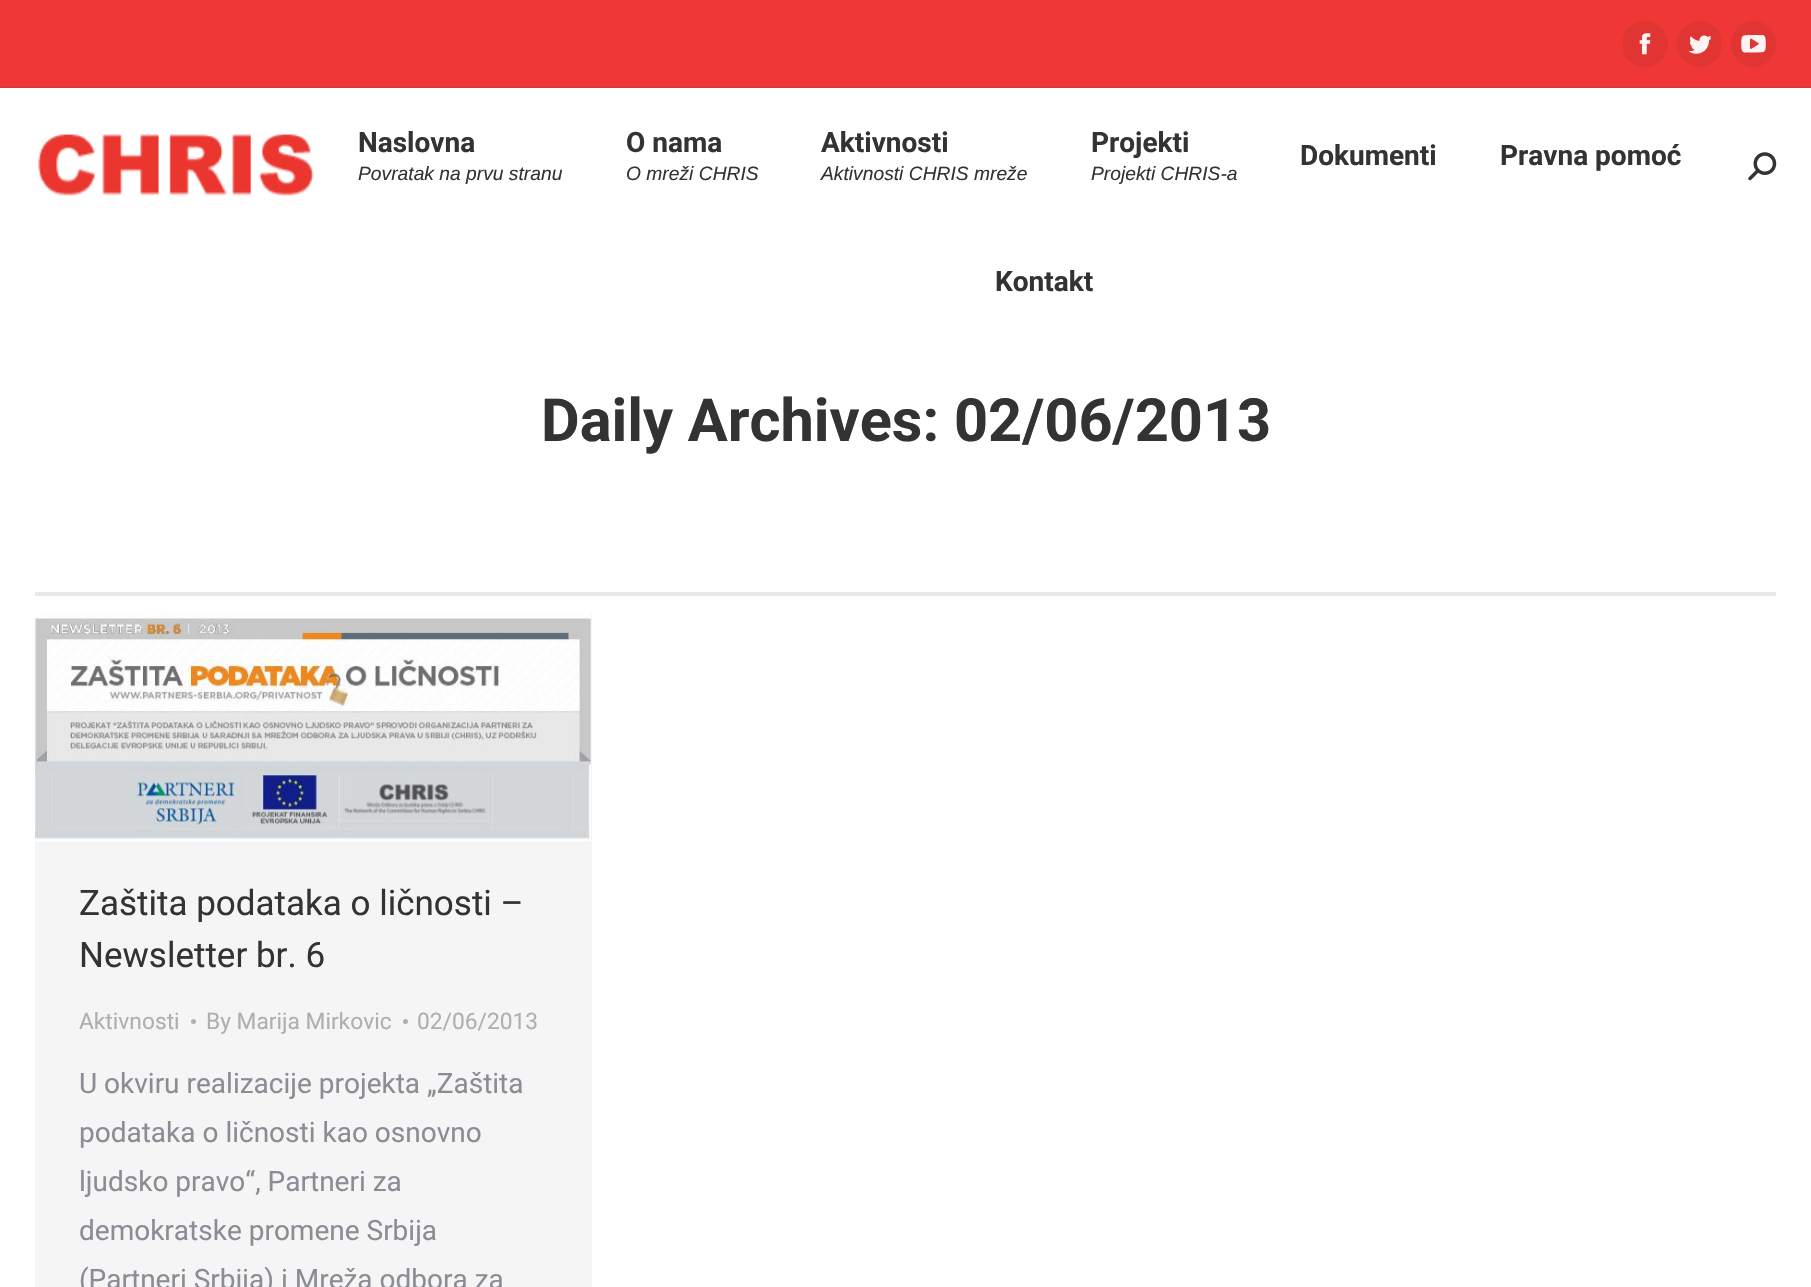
void draw(SkCanvas* canvas) {
    SkPaint paint;
    paint.setAntiAlias(true);
    canvas->clear(0xFFFFFFFF);
    paint.setColor(0xFFEF3836);
    canvas->drawRect(SkRect::MakeXYWH(0, 0, 1811, 86), paint);
    paint.setColor(0xFFE13533);
    canvas->drawCircle(1645, 44, 23, paint);
    canvas->drawImageRect(SkImages::DeferredFromEncodedData(SkData::MakeFromFileName("img1.png")), SkRect::MakeXYWH(1639, 33, 12, 22), SkSamplingOptions());
    canvas->drawRoundRect(SkRect::MakeXYWH(1677, 21, 45, 46), 22.5f, 22.5f, paint);
    canvas->drawImageRect(SkImages::DeferredFromEncodedData(SkData::MakeFromFileName("img2.png")), SkRect::MakeXYWH(1689, 35, 23, 19), SkSamplingOptions());
    canvas->drawRoundRect(SkRect::MakeXYWH(1731, 21, 45, 46), 22.5f, 22.5f, paint);
    canvas->drawImageRect(SkImages::DeferredFromEncodedData(SkData::MakeFromFileName("img3.png")), SkRect::MakeXYWH(1741, 35, 25, 18), SkSamplingOptions());
    paint.setColor(0xFFDA3736);
    canvas->drawRect(SkRect::MakeXYWH(0, 86, 1811, 2), paint);
    canvas->drawImageRect(SkImages::DeferredFromEncodedData(SkData::MakeFromFileName("img4.png")), SkRect::MakeXYWH(38, 134, 276, 62), SkSamplingOptions());
    SkFont font1(fontMgr->matchFamilyStyle("Roboto", SkFontStyle::Bold()), 28);
    font1.setSubpixel(true);
    paint.setColor(0xFF333333);
    canvas->drawString("Naslovna", 358, 152, font1, paint);
    SkFont font2(fontMgr->matchFamilyStyle("Liberation Sans", SkFontStyle::Italic()), 19.25f);
    font2.setSubpixel(true);
    canvas->drawString("Povratak na prvu stranu", 358, 180, font2, paint);
    canvas->drawString("O nama", 626, 152, font1, paint);
    canvas->drawString("O mreži CHRIS", 626, 180, font2, paint);
    canvas->drawString("Aktivnosti", 821, 152, font1, paint);
    canvas->drawString("Aktivnosti CHRIS mreže", 821, 180, font2, paint);
    canvas->drawString("Projekti", 1091, 152, font1, paint);
    canvas->drawString("Projekti CHRIS-a", 1091, 180, font2, paint);
    canvas->drawString("Dokumenti", 1300, 165, font1, paint);
    canvas->drawString("Pravna pomoć", 1500, 165, font1, paint);
    canvas->drawString("Kontakt", 995, 291, font1, paint);
    canvas->drawImageRect(SkImages::DeferredFromEncodedData(SkData::MakeFromFileName("img5.png")), SkRect::MakeXYWH(1748, 152, 29, 29), SkSamplingOptions());
    SkFont font3(fontMgr->matchFamilyStyle("Roboto", SkFontStyle::Bold()), 59.5f);
    font3.setSubpixel(true);
    canvas->drawString("Daily Archives: 02/06/2013", 541, 441, font3, paint);
    paint.setColor(0xFFE9E9E9);
    canvas->drawRect(SkRect::MakeXYWH(35, 592, 1741, 4), paint);
    paint.setColor(0xFFF5F5F5);
    canvas->drawRect(SkRect::MakeXYWH(35, 613, 557, 674), paint);
    canvas->drawImageRect(SkImages::DeferredFromEncodedData(SkData::MakeFromFileName("img6.png")), SkRect::MakeXYWH(35, 613, 556, 229), SkSamplingOptions());
    SkFont font4(fontMgr->matchFamilyStyle("Roboto", SkFontStyle::Normal()), 35);
    font4.setSubpixel(true);
    paint.setColor(0xFF333333);
    canvas->drawString("Zaštita podataka o ličnosti –", 79, 915, font4, paint);
    canvas->drawString("Newsletter br. 6", 79, 967, font4, paint);
    SkFont font5(fontMgr->matchFamilyStyle("Roboto", SkFontStyle::Normal()), 22.75f);
    font5.setSubpixel(true);
    paint.setColor(0xFFADAFB3);
    canvas->drawString("Aktivnosti", 79, 1029, font5, paint);
    canvas->drawCircle(193.5f, 1021.5f, 2.5f, paint);
    canvas->drawString("By Marija Mirkovic", 206, 1029, font5, paint);
    canvas->drawCircle(405.5f, 1021.5f, 2.5f, paint);
    canvas->drawString("02/06/2013", 417, 1029, font5, paint);
    SkFont font6(fontMgr->matchFamilyStyle("Roboto", SkFontStyle::Normal()), 28);
    font6.setSubpixel(true);
    paint.setColor(0xFF8B8D94);
    canvas->drawString("U okviru realizacije projekta „Zaštita", 79, 1093, font6, paint);
    canvas->drawString("podataka o ličnosti kao osnovno", 79, 1142, font6, paint);
    canvas->drawString("ljudsko pravo“, Partneri za", 79, 1191, font6, paint);
    canvas->drawString("demokratske promene Srbija", 79, 1240, font6, paint);
    canvas->drawString("(Partneri Srbija) i Mreža odbora za", 79, 1289, font6, paint);
}
